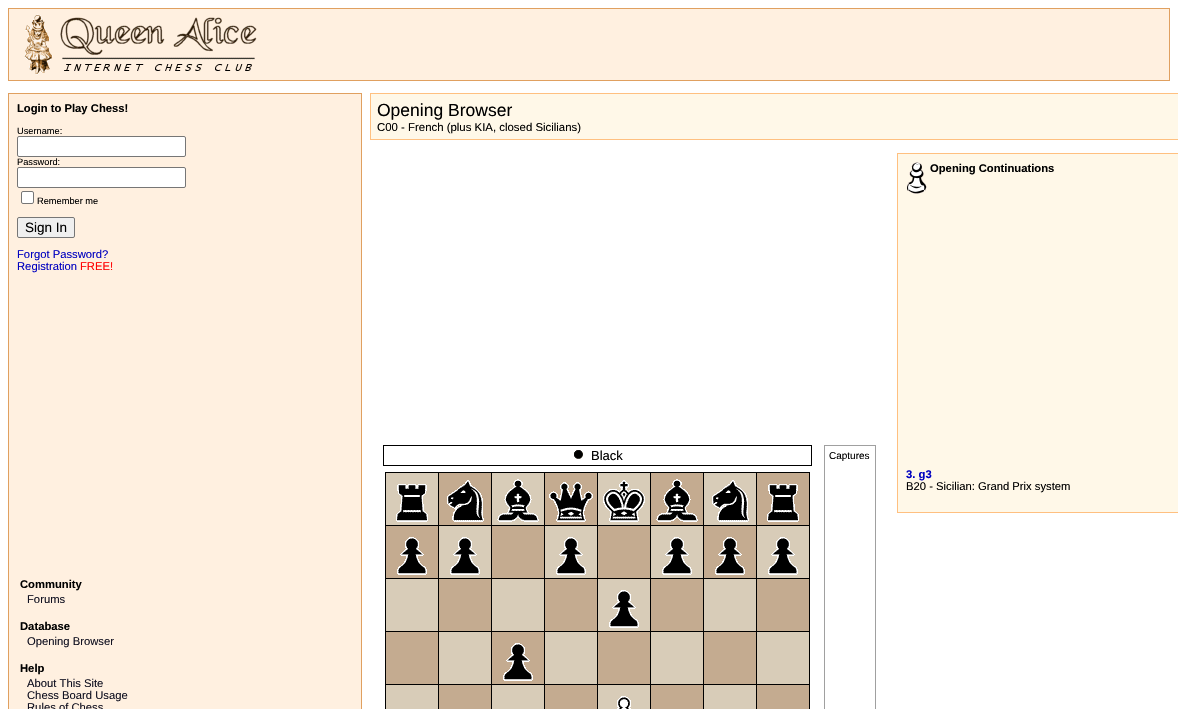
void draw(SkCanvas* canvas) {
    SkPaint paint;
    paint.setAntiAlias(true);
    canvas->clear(0xFFFFFFFF);
    paint.setColor(0xFFFFF0E0);
    canvas->drawRect(SkRect::MakeXYWH(8.5f, 8.5f, 1161, 72), paint);
    paint.setStyle(SkPaint::kStroke_Style);
    paint.setStrokeWidth(1);
    paint.setColor(0xFFE0A060);
    canvas->drawRect(SkRect::MakeXYWH(8.5f, 8.5f, 1161, 72), paint);
    canvas->drawImageRect(SkImages::DeferredFromEncodedData(SkData::MakeFromFileName("img1.png")), SkRect::MakeXYWH(24, 14, 233, 61), SkSamplingOptions());
    paint.setStyle(SkPaint::kFill_Style);
    paint.setColor(0xFFFFF0E0);
    canvas->drawRect(SkRect::MakeXYWH(8.5f, 93.5f, 353, 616), paint);
    paint.setStyle(SkPaint::kStroke_Style);
    paint.setColor(0xFFE0A060);
    canvas->drawRect(SkRect::MakeXYWH(8.5f, 93.5f, 353, 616), paint);
    SkFont font1(fontMgr->matchFamilyStyle("Liberation Sans", SkFontStyle::Bold()), 11.25f);
    font1.setSubpixel(true);
    paint.setStyle(SkPaint::kFill_Style);
    paint.setColor(0xFF000000);
    canvas->drawString("Login to Play Chess!", 17, 112, font1, paint);
    SkFont font2(fontMgr->matchFamilyStyle("Liberation Sans", SkFontStyle::Normal()), 9.25f);
    font2.setSubpixel(true);
    canvas->drawString("Username:", 17, 134, font2, paint);
    paint.setColor(0xFFFFFFFF);
    canvas->drawRoundRect(SkRect::MakeXYWH(17.5f, 136.5f, 168, 20), 1.5f, 1.5f, paint);
    paint.setStyle(SkPaint::kStroke_Style);
    paint.setColor(0xFF767676);
    canvas->drawRoundRect(SkRect::MakeXYWH(17.5f, 136.5f, 168, 20), 1.5f, 1.5f, paint);
    paint.setStyle(SkPaint::kFill_Style);
    paint.setColor(0xFF000000);
    canvas->drawString("Password:", 17, 165, font2, paint);
    paint.setColor(0xFFFFFFFF);
    canvas->drawRoundRect(SkRect::MakeXYWH(17.5f, 167.5f, 168, 20), 1.5f, 1.5f, paint);
    paint.setStyle(SkPaint::kStroke_Style);
    paint.setColor(0xFF767676);
    canvas->drawRoundRect(SkRect::MakeXYWH(17.5f, 167.5f, 168, 20), 1.5f, 1.5f, paint);
    paint.setStyle(SkPaint::kFill_Style);
    paint.setColor(0xFFFFFFFF);
    canvas->drawRoundRect(SkRect::MakeXYWH(21.5f, 191.5f, 12, 12), 1.5f, 1.5f, paint);
    paint.setStyle(SkPaint::kStroke_Style);
    paint.setColor(0xFF767676);
    canvas->drawRoundRect(SkRect::MakeXYWH(21.5f, 191.5f, 12, 12), 1.5f, 1.5f, paint);
    paint.setStyle(SkPaint::kFill_Style);
    paint.setColor(0xFF000000);
    canvas->drawString("Remember me", 37, 204, font2, paint);
    paint.setColor(0xFFEFEFEF);
    canvas->drawRoundRect(SkRect::MakeXYWH(17.5f, 217.5f, 57, 20), 1.5f, 1.5f, paint);
    paint.setStyle(SkPaint::kStroke_Style);
    paint.setColor(0xFF767676);
    canvas->drawRoundRect(SkRect::MakeXYWH(17.5f, 217.5f, 57, 20), 1.5f, 1.5f, paint);
    SkFont font3(fontMgr->matchFamilyStyle("Liberation Sans", SkFontStyle::Normal()), 13.5f);
    font3.setSubpixel(true);
    paint.setStyle(SkPaint::kFill_Style);
    paint.setColor(0xFF000000);
    canvas->drawString("Sign In", 25, 232, font3, paint);
    SkFont font4(fontMgr->matchFamilyStyle("Liberation Sans", SkFontStyle::Normal()), 11.25f);
    font4.setSubpixel(true);
    paint.setColor(0xFF0000C0);
    canvas->drawString("Forgot Password?", 17, 258, font4, paint);
    canvas->drawString("Registration", 17, 270, font4, paint);
    paint.setColor(0xFFFF0000);
    canvas->drawString("FREE!", 80, 270, font4, paint);
    paint.setColor(0xFF000000);
    canvas->drawString("Community", 20, 588, font1, paint);
    paint.setColor(0xFF101020);
    canvas->drawString("Forums", 27, 603, font4, paint);
    paint.setColor(0xFF000000);
    canvas->drawString("Database", 20, 630, font1, paint);
    paint.setColor(0xFF101020);
    canvas->drawString("Opening Browser", 27, 645, font4, paint);
    paint.setColor(0xFF000000);
    canvas->drawString("Help", 20, 672, font1, paint);
    paint.setColor(0xFF101020);
    canvas->drawString("About This Site", 27, 687, font4, paint);
    canvas->drawString("Chess Board Usage", 27, 699, font4, paint);
    canvas->drawString("Rules of Chess", 27, 711, font4, paint);
    paint.setColor(0xFFFFF8E8);
    canvas->drawRect(SkRect::MakeXYWH(370.5f, 93.5f, 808, 46), paint);
    paint.setStyle(SkPaint::kStroke_Style);
    paint.setColor(0xFFFFC080);
    canvas->drawRect(SkRect::MakeXYWH(370.5f, 93.5f, 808, 46), paint);
    SkFont font5(fontMgr->matchFamilyStyle("Liberation Sans", SkFontStyle::Normal()), 17.5f);
    font5.setSubpixel(true);
    paint.setStyle(SkPaint::kFill_Style);
    paint.setColor(0xFF000000);
    canvas->drawString("Opening Browser", 377, 116, font5, paint);
    SkFont font6(fontMgr->matchFamilyStyle("Liberation Sans", SkFontStyle::Normal()), 11.4f);
    font6.setSubpixel(true);
    canvas->drawString("C00 - French (plus KIA, closed Sicilians)", 377, 131, font6, paint);
    paint.setStyle(SkPaint::kStroke_Style);
    canvas->drawRect(SkRect::MakeXYWH(383.5f, 445.5f, 428, 20), paint);
    canvas->drawImageRect(SkImages::DeferredFromEncodedData(SkData::MakeFromFileName("img2.png")), SkRect::MakeXYWH(574, 450, 9, 9), SkSamplingOptions());
    SkFont font7(fontMgr->matchFamilyStyle("Liberation Sans", SkFontStyle::Normal()), 13);
    font7.setSubpixel(true);
    paint.setStyle(SkPaint::kFill_Style);
    canvas->drawString("Black", 591, 460, font7, paint);
    paint.setStyle(SkPaint::kStroke_Style);
    paint.setColor(0xFFA0A0A0);
    canvas->drawRect(SkRect::MakeXYWH(824.5f, 445.5f, 51, 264), paint);
    SkFont font8(fontMgr->matchFamilyStyle("Liberation Sans", SkFontStyle::Normal()), 10);
    font8.setSubpixel(true);
    paint.setStyle(SkPaint::kFill_Style);
    paint.setColor(0xFF000000);
    canvas->drawString("Captures", 829, 459, font8, paint);
    canvas->drawRect(SkRect::MakeXYWH(385, 472, 425, 237), paint);
    paint.setColor(0xFFD8CCB8);
    canvas->drawRect(SkRect::MakeXYWH(386, 473, 52, 52), paint);
    canvas->drawImageRect(SkImages::DeferredFromEncodedData(SkData::MakeFromFileName("img3.png")), SkRect::MakeXYWH(396, 484, 32, 38), SkSamplingOptions());
    paint.setColor(0xFFC4AB90);
    canvas->drawRect(SkRect::MakeXYWH(439, 473, 52, 52), paint);
    canvas->drawImageRect(SkImages::DeferredFromEncodedData(SkData::MakeFromFileName("img4.png")), SkRect::MakeXYWH(447, 480, 37, 42), SkSamplingOptions());
    paint.setColor(0xFFD8CCB8);
    canvas->drawRect(SkRect::MakeXYWH(492, 473, 52, 52), paint);
    canvas->drawImageRect(SkImages::DeferredFromEncodedData(SkData::MakeFromFileName("img5.png")), SkRect::MakeXYWH(497, 479, 42, 43), SkSamplingOptions());
    paint.setColor(0xFFC4AB90);
    canvas->drawRect(SkRect::MakeXYWH(545, 473, 52, 52), paint);
    canvas->drawImageRect(SkImages::DeferredFromEncodedData(SkData::MakeFromFileName("img6.png")), SkRect::MakeXYWH(549, 482, 44, 40), SkSamplingOptions());
    paint.setColor(0xFFD8CCB8);
    canvas->drawRect(SkRect::MakeXYWH(598, 473, 52, 52), paint);
    canvas->drawImageRect(SkImages::DeferredFromEncodedData(SkData::MakeFromFileName("img7.png")), SkRect::MakeXYWH(603, 480, 42, 42), SkSamplingOptions());
    paint.setColor(0xFFC4AB90);
    canvas->drawRect(SkRect::MakeXYWH(651, 473, 52, 52), paint);
    canvas->drawImageRect(SkImages::DeferredFromEncodedData(SkData::MakeFromFileName("img8.png")), SkRect::MakeXYWH(656, 479, 42, 43), SkSamplingOptions());
    paint.setColor(0xFFD8CCB8);
    canvas->drawRect(SkRect::MakeXYWH(704, 473, 52, 52), paint);
    canvas->drawImageRect(SkImages::DeferredFromEncodedData(SkData::MakeFromFileName("img9.png")), SkRect::MakeXYWH(712, 480, 37, 42), SkSamplingOptions());
    paint.setColor(0xFFC4AB90);
    canvas->drawRect(SkRect::MakeXYWH(757, 473, 52, 52), paint);
    canvas->drawImageRect(SkImages::DeferredFromEncodedData(SkData::MakeFromFileName("img10.png")), SkRect::MakeXYWH(767, 484, 32, 38), SkSamplingOptions());
    canvas->drawRect(SkRect::MakeXYWH(386, 526, 52, 52), paint);
    canvas->drawImageRect(SkImages::DeferredFromEncodedData(SkData::MakeFromFileName("img11.png")), SkRect::MakeXYWH(397, 537, 30, 38), SkSamplingOptions());
    paint.setColor(0xFFD8CCB8);
    canvas->drawRect(SkRect::MakeXYWH(439, 526, 52, 52), paint);
    canvas->drawImageRect(SkImages::DeferredFromEncodedData(SkData::MakeFromFileName("img12.png")), SkRect::MakeXYWH(450, 537, 30, 38), SkSamplingOptions());
    paint.setColor(0xFFC4AB90);
    canvas->drawRect(SkRect::MakeXYWH(492, 526, 52, 52), paint);
    paint.setColor(0xFFD8CCB8);
    canvas->drawRect(SkRect::MakeXYWH(545, 526, 52, 52), paint);
    canvas->drawImageRect(SkImages::DeferredFromEncodedData(SkData::MakeFromFileName("img12.png")), SkRect::MakeXYWH(556, 537, 30, 38), SkSamplingOptions());
    paint.setColor(0xFFC4AB90);
    canvas->drawRect(SkRect::MakeXYWH(598, 526, 52, 52), paint);
    paint.setColor(0xFFD8CCB8);
    canvas->drawRect(SkRect::MakeXYWH(651, 526, 52, 52), paint);
    canvas->drawImageRect(SkImages::DeferredFromEncodedData(SkData::MakeFromFileName("img12.png")), SkRect::MakeXYWH(662, 537, 30, 38), SkSamplingOptions());
    paint.setColor(0xFFC4AB90);
    canvas->drawRect(SkRect::MakeXYWH(704, 526, 52, 52), paint);
    canvas->drawImageRect(SkImages::DeferredFromEncodedData(SkData::MakeFromFileName("img11.png")), SkRect::MakeXYWH(715, 537, 30, 38), SkSamplingOptions());
    paint.setColor(0xFFD8CCB8);
    canvas->drawRect(SkRect::MakeXYWH(757, 526, 52, 52), paint);
    canvas->drawImageRect(SkImages::DeferredFromEncodedData(SkData::MakeFromFileName("img12.png")), SkRect::MakeXYWH(768, 537, 30, 38), SkSamplingOptions());
    canvas->drawRect(SkRect::MakeXYWH(386, 579, 52, 52), paint);
    paint.setColor(0xFFC4AB90);
    canvas->drawRect(SkRect::MakeXYWH(439, 579, 52, 52), paint);
    paint.setColor(0xFFD8CCB8);
    canvas->drawRect(SkRect::MakeXYWH(492, 579, 52, 52), paint);
    paint.setColor(0xFFC4AB90);
    canvas->drawRect(SkRect::MakeXYWH(545, 579, 52, 52), paint);
    paint.setColor(0xFFD8CCB8);
    canvas->drawRect(SkRect::MakeXYWH(598, 579, 52, 52), paint);
    canvas->drawImageRect(SkImages::DeferredFromEncodedData(SkData::MakeFromFileName("img12.png")), SkRect::MakeXYWH(609, 590, 30, 38), SkSamplingOptions());
    paint.setColor(0xFFC4AB90);
    canvas->drawRect(SkRect::MakeXYWH(651, 579, 52, 52), paint);
    paint.setColor(0xFFD8CCB8);
    canvas->drawRect(SkRect::MakeXYWH(704, 579, 52, 52), paint);
    paint.setColor(0xFFC4AB90);
    canvas->drawRect(SkRect::MakeXYWH(757, 579, 52, 52), paint);
    canvas->drawRect(SkRect::MakeXYWH(386, 632, 52, 52), paint);
    paint.setColor(0xFFD8CCB8);
    canvas->drawRect(SkRect::MakeXYWH(439, 632, 52, 52), paint);
    paint.setColor(0xFFC4AB90);
    canvas->drawRect(SkRect::MakeXYWH(492, 632, 52, 52), paint);
    canvas->drawImageRect(SkImages::DeferredFromEncodedData(SkData::MakeFromFileName("img11.png")), SkRect::MakeXYWH(503, 643, 30, 38), SkSamplingOptions());
    paint.setColor(0xFFD8CCB8);
    canvas->drawRect(SkRect::MakeXYWH(545, 632, 52, 52), paint);
    paint.setColor(0xFFC4AB90);
    canvas->drawRect(SkRect::MakeXYWH(598, 632, 52, 52), paint);
    paint.setColor(0xFFD8CCB8);
    canvas->drawRect(SkRect::MakeXYWH(651, 632, 52, 52), paint);
    paint.setColor(0xFFC4AB90);
    canvas->drawRect(SkRect::MakeXYWH(704, 632, 52, 52), paint);
    paint.setColor(0xFFD8CCB8);
    canvas->drawRect(SkRect::MakeXYWH(757, 632, 52, 52), paint);
    canvas->drawRect(SkRect::MakeXYWH(386, 685, 52, 24), paint);
    paint.setColor(0xFFC4AB90);
    canvas->drawRect(SkRect::MakeXYWH(439, 685, 52, 24), paint);
    paint.setColor(0xFFD8CCB8);
    canvas->drawRect(SkRect::MakeXYWH(492, 685, 52, 24), paint);
    paint.setColor(0xFFC4AB90);
    canvas->drawRect(SkRect::MakeXYWH(545, 685, 52, 24), paint);
    paint.setColor(0xFFD8CCB8);
    canvas->drawRect(SkRect::MakeXYWH(598, 685, 52, 24), paint);
    canvas->drawImageRect(SkImages::DeferredFromEncodedData(SkData::MakeFromFileName("img13.png")), SkRect::MakeXYWH(617, 696, 14, 13), SkSamplingOptions());
    paint.setColor(0xFFC4AB90);
    canvas->drawRect(SkRect::MakeXYWH(651, 685, 52, 24), paint);
    paint.setColor(0xFFD8CCB8);
    canvas->drawRect(SkRect::MakeXYWH(704, 685, 52, 24), paint);
    paint.setColor(0xFFC4AB90);
    canvas->drawRect(SkRect::MakeXYWH(757, 685, 52, 24), paint);
    paint.setColor(0xFFFFF8E8);
    canvas->drawRect(SkRect::MakeXYWH(897.5f, 153.5f, 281, 359), paint);
    paint.setStyle(SkPaint::kStroke_Style);
    paint.setColor(0xFFFFC080);
    canvas->drawRect(SkRect::MakeXYWH(897.5f, 153.5f, 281, 359), paint);
    canvas->drawImageRect(SkImages::DeferredFromEncodedData(SkData::MakeFromFileName("img14.png")), SkRect::MakeXYWH(907, 162, 20, 32), SkSamplingOptions());
    paint.setStyle(SkPaint::kFill_Style);
    paint.setColor(0xFF000000);
    canvas->drawString("Opening Continuations", 930, 172, font1, paint);
    paint.setColor(0xFF0000C0);
    canvas->drawString("3. g3", 906, 478, font1, paint);
    paint.setColor(0xFF000000);
    canvas->drawString("B20 - Sicilian: Grand Prix system", 906, 490, font4, paint);
}
